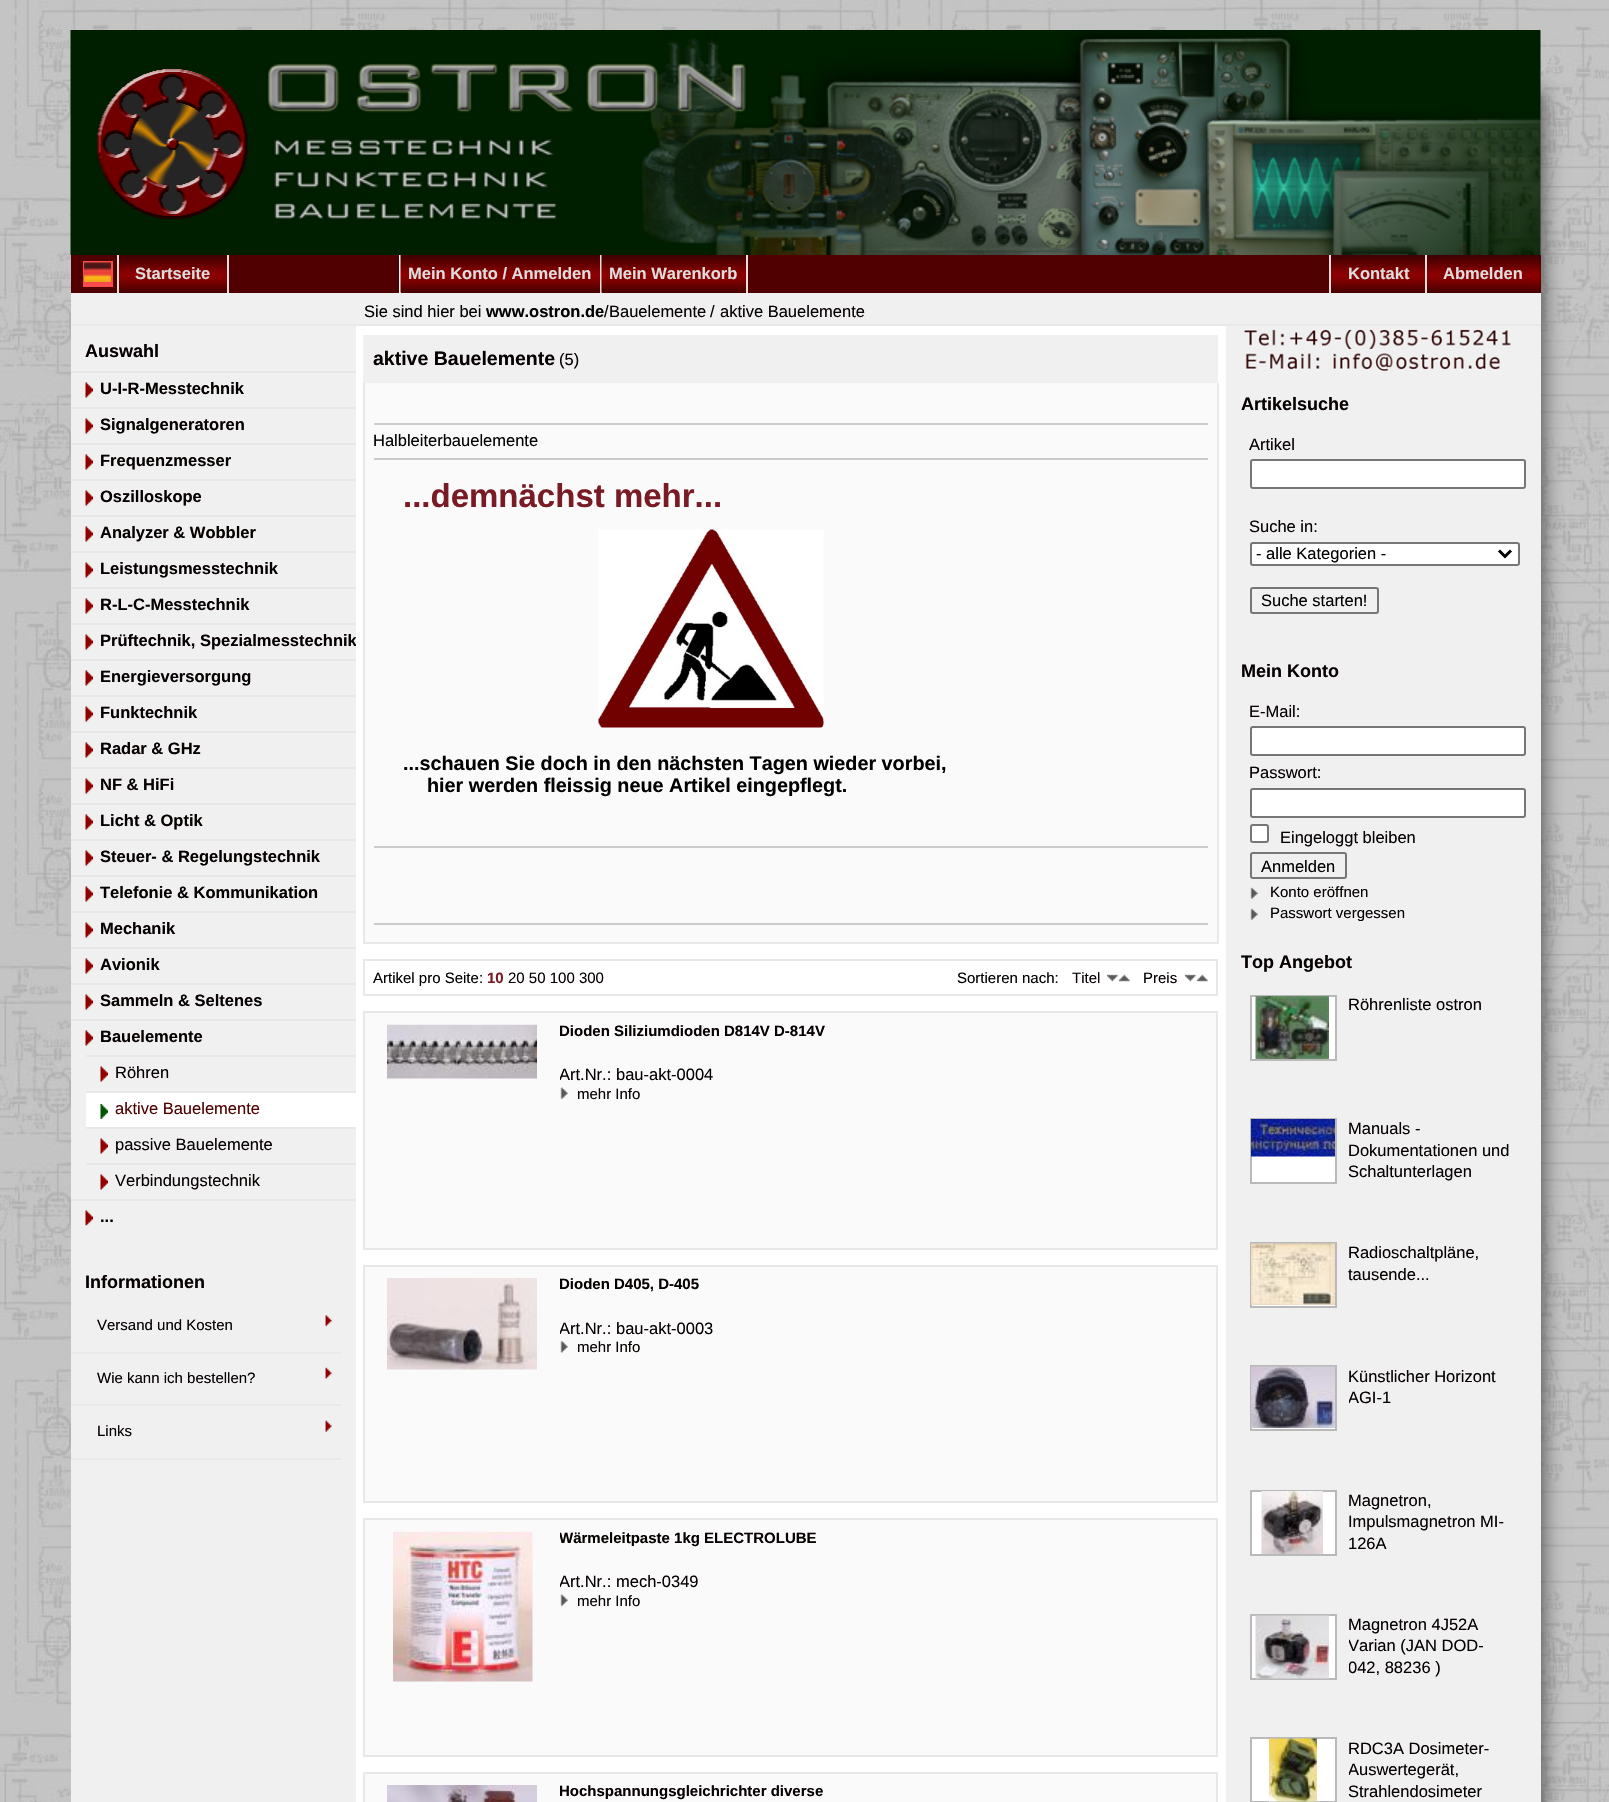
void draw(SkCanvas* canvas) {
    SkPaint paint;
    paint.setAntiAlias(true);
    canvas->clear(0xFFFFFFFF);
    canvas->drawImageRect(SkImages::DeferredFromEncodedData(SkData::MakeFromFileName("img1.png")), SkRect::MakeXYWH(0, 0, 1609, 1802), SkSamplingOptions());
    paint.setColor(0xFF3B3B3B);
    paint.setMaskFilter(SkMaskFilter::MakeBlur(kNormal_SkBlurStyle, 11));
    canvas->drawRect(SkRect::MakeXYWH(161, 90, 1380, 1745), paint);
    paint.setMaskFilter(nullptr);
    canvas->drawImageRect(SkImages::DeferredFromEncodedData(SkData::MakeFromFileName("img2.png")), SkRect::MakeXYWH(70, 30, 1471, 225), SkSamplingOptions());
    canvas->drawImageRect(SkImages::DeferredFromEncodedData(SkData::MakeFromFileName("img4.png")), SkRect::MakeXYWH(237, 45, 531, 83), SkSamplingOptions());
    canvas->drawImageRect(SkImages::DeferredFromEncodedData(SkData::MakeFromFileName("img3.png")), SkRect::MakeXYWH(97, 69, 151, 150), SkSamplingOptions());
    paint.setColor(0xFF500000);
    canvas->drawRect(SkRect::MakeXYWH(71, 255, 1470, 38), paint);
    paint.setColor(0xFFFFFFFF);
    canvas->drawRect(SkRect::MakeXYWH(399, 255, 2, 38), paint);
    paint.setColor(0xFFF94B4B);
    canvas->drawRect(SkRect::MakeXYWH(83, 261, 30, 26), paint);
    canvas->drawImageRect(SkImages::DeferredFromEncodedData(SkData::MakeFromFileName("img5.png")), SkRect::MakeXYWH(84, 262, 27, 20), SkSamplingOptions());
    canvas->drawImageRect(SkImages::DeferredFromEncodedData(SkData::MakeFromFileName("img6.png")), SkRect::MakeXYWH(119, 255, 108, 38), SkSamplingOptions());
    paint.setColor(0xFFEEDBDC);
    canvas->drawRect(SkRect::MakeXYWH(227, 255, 2, 38), paint);
    canvas->drawRect(SkRect::MakeXYWH(117, 255, 2, 38), paint);
    SkFont font1(fontMgr->matchFamilyStyle("Liberation Sans", SkFontStyle::Bold()), 16.5f);
    font1.setSubpixel(true);
    paint.setColor(0xFFDDDDDD);
    canvas->drawString("Startseite", 135, 279, font1, paint);
    canvas->drawImageRect(SkImages::DeferredFromEncodedData(SkData::MakeFromFileName("img7.png")), SkRect::MakeXYWH(400, 255, 200, 38), SkSamplingOptions());
    paint.setColor(0xFFEEDBDC);
    canvas->drawRect(SkRect::MakeXYWH(600, 255, 2, 38), paint);
    paint.setColor(0xFFDDDDDD);
    canvas->drawString("Mein Konto / Anmelden", 408, 279, font1, paint);
    canvas->drawImageRect(SkImages::DeferredFromEncodedData(SkData::MakeFromFileName("img8.png")), SkRect::MakeXYWH(601, 255, 145, 38), SkSamplingOptions());
    paint.setColor(0xFFEEDBDC);
    canvas->drawRect(SkRect::MakeXYWH(746, 255, 2, 38), paint);
    paint.setColor(0xFFDDDDDD);
    canvas->drawString("Mein Warenkorb", 609, 279, font1, paint);
    canvas->drawImageRect(SkImages::DeferredFromEncodedData(SkData::MakeFromFileName("img9.png")), SkRect::MakeXYWH(1331, 255, 94, 38), SkSamplingOptions());
    paint.setColor(0xFFEEDBDC);
    canvas->drawRect(SkRect::MakeXYWH(1329, 255, 2, 38), paint);
    paint.setColor(0xFFDDDDDD);
    canvas->drawString("Kontakt", 1348, 279, font1, paint);
    canvas->drawImageRect(SkImages::DeferredFromEncodedData(SkData::MakeFromFileName("img10.png")), SkRect::MakeXYWH(1427, 255, 114, 38), SkSamplingOptions());
    paint.setColor(0xFFEEDBDC);
    canvas->drawRect(SkRect::MakeXYWH(1425, 255, 2, 38), paint);
    paint.setColor(0xFFDDDDDD);
    canvas->drawString("Abmelden", 1443, 279, font1, paint);
    paint.setColor(0xFFF0F0F0);
    canvas->drawRect(SkRect::MakeXYWH(71, 293, 1470, 1509), paint);
    paint.setColor(0xFFE8E8E8);
    canvas->drawRect(SkRect::MakeXYWH(71, 324, 1470, 2), paint);
    SkFont font2(fontMgr->matchFamilyStyle("Liberation Sans", SkFontStyle::Normal()), 16.5f);
    font2.setSubpixel(true);
    paint.setColor(0xFF000000);
    canvas->drawString("Sie sind hier bei", 364, 317, font2, paint);
    canvas->drawString("www.ostron.de", 486, 317, font1, paint);
    canvas->drawString("/", 604, 317, font2, paint);
    paint.setColor(0xFF060000);
    canvas->drawString("Bauelemente", 609, 317, font2, paint);
    paint.setColor(0xFF000000);
    canvas->drawString("/", 710, 317, font2, paint);
    paint.setColor(0xFF060000);
    canvas->drawString("aktive Bauelemente", 720, 317, font2, paint);
    SkFont font3(fontMgr->matchFamilyStyle("Liberation Sans", SkFontStyle::Bold()), 18);
    font3.setSubpixel(true);
    canvas->drawString("Auswahl", 85, 357, font3, paint);
    canvas->drawImageRect(SkImages::DeferredFromEncodedData(SkData::MakeFromFileName("img11.png")), SkRect::MakeXYWH(85, 382, 8, 16), SkSamplingOptions());
    paint.setColor(0xFFE8E8E8);
    canvas->drawRect(SkRect::MakeXYWH(71, 371, 285, 2), paint);
    paint.setColor(0xFF060000);
    canvas->drawString("U-I-R-Messtechnik", 100, 394, font1, paint);
    canvas->drawImageRect(SkImages::DeferredFromEncodedData(SkData::MakeFromFileName("img11.png")), SkRect::MakeXYWH(85, 418, 8, 16), SkSamplingOptions());
    paint.setColor(0xFFE8E8E8);
    canvas->drawRect(SkRect::MakeXYWH(71, 407, 285, 2), paint);
    paint.setColor(0xFF060000);
    canvas->drawString("Signalgeneratoren", 100, 430, font1, paint);
    canvas->drawImageRect(SkImages::DeferredFromEncodedData(SkData::MakeFromFileName("img11.png")), SkRect::MakeXYWH(85, 454, 8, 16), SkSamplingOptions());
    paint.setColor(0xFFE8E8E8);
    canvas->drawRect(SkRect::MakeXYWH(71, 443, 285, 2), paint);
    paint.setColor(0xFF060000);
    canvas->drawString("Frequenzmesser", 100, 466, font1, paint);
    canvas->drawImageRect(SkImages::DeferredFromEncodedData(SkData::MakeFromFileName("img11.png")), SkRect::MakeXYWH(85, 490, 8, 16), SkSamplingOptions());
    paint.setColor(0xFFE8E8E8);
    canvas->drawRect(SkRect::MakeXYWH(71, 479, 285, 2), paint);
    paint.setColor(0xFF060000);
    canvas->drawString("Oszilloskope", 100, 502, font1, paint);
    canvas->drawImageRect(SkImages::DeferredFromEncodedData(SkData::MakeFromFileName("img11.png")), SkRect::MakeXYWH(85, 526, 8, 16), SkSamplingOptions());
    paint.setColor(0xFFE8E8E8);
    canvas->drawRect(SkRect::MakeXYWH(71, 515, 285, 2), paint);
    paint.setColor(0xFF060000);
    canvas->drawString("Analyzer & Wobbler", 100, 538, font1, paint);
    canvas->drawImageRect(SkImages::DeferredFromEncodedData(SkData::MakeFromFileName("img11.png")), SkRect::MakeXYWH(85, 562, 8, 16), SkSamplingOptions());
    paint.setColor(0xFFE8E8E8);
    canvas->drawRect(SkRect::MakeXYWH(71, 551, 285, 2), paint);
    paint.setColor(0xFF060000);
    canvas->drawString("Leistungsmesstechnik", 100, 574, font1, paint);
    canvas->drawImageRect(SkImages::DeferredFromEncodedData(SkData::MakeFromFileName("img11.png")), SkRect::MakeXYWH(85, 598, 8, 16), SkSamplingOptions());
    paint.setColor(0xFFE8E8E8);
    canvas->drawRect(SkRect::MakeXYWH(71, 587, 285, 2), paint);
    paint.setColor(0xFF060000);
    canvas->drawString("R-L-C-Messtechnik", 100, 610, font1, paint);
    canvas->drawImageRect(SkImages::DeferredFromEncodedData(SkData::MakeFromFileName("img11.png")), SkRect::MakeXYWH(85, 634, 8, 16), SkSamplingOptions());
    paint.setColor(0xFFE8E8E8);
    canvas->drawRect(SkRect::MakeXYWH(71, 623, 285, 2), paint);
    paint.setColor(0xFF060000);
    canvas->drawString("Prüftechnik, Spezialmesstechnik", 100, 646, font1, paint);
    canvas->drawImageRect(SkImages::DeferredFromEncodedData(SkData::MakeFromFileName("img11.png")), SkRect::MakeXYWH(85, 670, 8, 16), SkSamplingOptions());
    paint.setColor(0xFFE8E8E8);
    canvas->drawRect(SkRect::MakeXYWH(71, 659, 285, 2), paint);
    paint.setColor(0xFF060000);
    canvas->drawString("Energieversorgung", 100, 682, font1, paint);
    canvas->drawImageRect(SkImages::DeferredFromEncodedData(SkData::MakeFromFileName("img11.png")), SkRect::MakeXYWH(85, 706, 8, 16), SkSamplingOptions());
    paint.setColor(0xFFE8E8E8);
    canvas->drawRect(SkRect::MakeXYWH(71, 695, 285, 2), paint);
    paint.setColor(0xFF060000);
    canvas->drawString("Funktechnik", 100, 718, font1, paint);
    canvas->drawImageRect(SkImages::DeferredFromEncodedData(SkData::MakeFromFileName("img11.png")), SkRect::MakeXYWH(85, 742, 8, 16), SkSamplingOptions());
    paint.setColor(0xFFE8E8E8);
    canvas->drawRect(SkRect::MakeXYWH(71, 731, 285, 2), paint);
    paint.setColor(0xFF060000);
    canvas->drawString("Radar & GHz", 100, 754, font1, paint);
    canvas->drawImageRect(SkImages::DeferredFromEncodedData(SkData::MakeFromFileName("img11.png")), SkRect::MakeXYWH(85, 778, 8, 16), SkSamplingOptions());
    paint.setColor(0xFFE8E8E8);
    canvas->drawRect(SkRect::MakeXYWH(71, 767, 285, 2), paint);
    paint.setColor(0xFF060000);
    canvas->drawString("NF & HiFi", 100, 790, font1, paint);
    canvas->drawImageRect(SkImages::DeferredFromEncodedData(SkData::MakeFromFileName("img11.png")), SkRect::MakeXYWH(85, 814, 8, 16), SkSamplingOptions());
    paint.setColor(0xFFE8E8E8);
    canvas->drawRect(SkRect::MakeXYWH(71, 803, 285, 2), paint);
    paint.setColor(0xFF060000);
    canvas->drawString("Licht & Optik", 100, 826, font1, paint);
    canvas->drawImageRect(SkImages::DeferredFromEncodedData(SkData::MakeFromFileName("img11.png")), SkRect::MakeXYWH(85, 850, 8, 16), SkSamplingOptions());
    paint.setColor(0xFFE8E8E8);
    canvas->drawRect(SkRect::MakeXYWH(71, 839, 285, 2), paint);
    paint.setColor(0xFF060000);
    canvas->drawString("Steuer- & Regelungstechnik", 100, 862, font1, paint);
    canvas->drawImageRect(SkImages::DeferredFromEncodedData(SkData::MakeFromFileName("img11.png")), SkRect::MakeXYWH(85, 886, 8, 16), SkSamplingOptions());
    paint.setColor(0xFFE8E8E8);
    canvas->drawRect(SkRect::MakeXYWH(71, 875, 285, 2), paint);
    paint.setColor(0xFF060000);
    canvas->drawString("Telefonie & Kommunikation", 100, 898, font1, paint);
    canvas->drawImageRect(SkImages::DeferredFromEncodedData(SkData::MakeFromFileName("img11.png")), SkRect::MakeXYWH(85, 922, 8, 16), SkSamplingOptions());
    paint.setColor(0xFFE8E8E8);
    canvas->drawRect(SkRect::MakeXYWH(71, 911, 285, 2), paint);
    paint.setColor(0xFF060000);
    canvas->drawString("Mechanik", 100, 934, font1, paint);
    canvas->drawImageRect(SkImages::DeferredFromEncodedData(SkData::MakeFromFileName("img11.png")), SkRect::MakeXYWH(85, 958, 8, 16), SkSamplingOptions());
    paint.setColor(0xFFE8E8E8);
    canvas->drawRect(SkRect::MakeXYWH(71, 947, 285, 2), paint);
    paint.setColor(0xFF060000);
    canvas->drawString("Avionik", 100, 970, font1, paint);
    canvas->drawImageRect(SkImages::DeferredFromEncodedData(SkData::MakeFromFileName("img11.png")), SkRect::MakeXYWH(85, 994, 8, 16), SkSamplingOptions());
    paint.setColor(0xFFE8E8E8);
    canvas->drawRect(SkRect::MakeXYWH(71, 983, 285, 2), paint);
    paint.setColor(0xFF060000);
    canvas->drawString("Sammeln & Seltenes", 100, 1006, font1, paint);
    canvas->drawImageRect(SkImages::DeferredFromEncodedData(SkData::MakeFromFileName("img11.png")), SkRect::MakeXYWH(85, 1030, 8, 16), SkSamplingOptions());
    paint.setColor(0xFFE8E8E8);
    canvas->drawRect(SkRect::MakeXYWH(71, 1019, 285, 2), paint);
    paint.setColor(0xFF060000);
    canvas->drawString("Bauelemente", 100, 1042, font1, paint);
    canvas->drawImageRect(SkImages::DeferredFromEncodedData(SkData::MakeFromFileName("img11.png")), SkRect::MakeXYWH(100, 1066, 8, 16), SkSamplingOptions());
    paint.setColor(0xFFE8E8E8);
    canvas->drawRect(SkRect::MakeXYWH(86, 1055, 270, 2), paint);
    paint.setColor(0xFF060000);
    canvas->drawString("Röhren", 115, 1078, font2, paint);
    paint.setColor(0xFFFFFFFF);
    canvas->drawRect(SkRect::MakeXYWH(86, 1093, 270, 34), paint);
    canvas->drawImageRect(SkImages::DeferredFromEncodedData(SkData::MakeFromFileName("img12.png")), SkRect::MakeXYWH(100, 1104, 8, 15), SkSamplingOptions());
    paint.setColor(0xFFE8E8E8);
    canvas->drawRect(SkRect::MakeXYWH(86, 1091, 270, 2), paint);
    paint.setColor(0xFF500000);
    canvas->drawString("aktive Bauelemente", 115, 1114, font2, paint);
    canvas->drawImageRect(SkImages::DeferredFromEncodedData(SkData::MakeFromFileName("img11.png")), SkRect::MakeXYWH(100, 1138, 8, 16), SkSamplingOptions());
    paint.setColor(0xFFE8E8E8);
    canvas->drawRect(SkRect::MakeXYWH(86, 1127, 270, 2), paint);
    paint.setColor(0xFF060000);
    canvas->drawString("passive Bauelemente", 115, 1150, font2, paint);
    canvas->drawImageRect(SkImages::DeferredFromEncodedData(SkData::MakeFromFileName("img11.png")), SkRect::MakeXYWH(100, 1174, 8, 16), SkSamplingOptions());
    paint.setColor(0xFFE8E8E8);
    canvas->drawRect(SkRect::MakeXYWH(86, 1163, 270, 2), paint);
    paint.setColor(0xFF060000);
    canvas->drawString("Verbindungstechnik", 115, 1186, font2, paint);
    canvas->drawImageRect(SkImages::DeferredFromEncodedData(SkData::MakeFromFileName("img13.png")), SkRect::MakeXYWH(85, 1210, 8, 16), SkSamplingOptions());
    paint.setColor(0xFFE8E8E8);
    canvas->drawRect(SkRect::MakeXYWH(71, 1199, 285, 2), paint);
    paint.setColor(0xFF060000);
    canvas->drawString("...", 100, 1222, font1, paint);
    canvas->drawString("Informationen", 85, 1288, font3, paint);
    canvas->drawImageRect(SkImages::DeferredFromEncodedData(SkData::MakeFromFileName("img14.png")), SkRect::MakeXYWH(325, 1315, 7, 12), SkSamplingOptions());
    paint.setColor(0xFFE8E8E8);
    canvas->drawRect(SkRect::MakeXYWH(71, 1352, 270, 2), paint);
    SkFont font4(fontMgr->matchFamilyStyle("Liberation Sans", SkFontStyle::Normal()), 15);
    font4.setSubpixel(true);
    paint.setColor(0xFF060000);
    canvas->drawString("Versand und Kosten", 97, 1330, font4, paint);
    canvas->drawImageRect(SkImages::DeferredFromEncodedData(SkData::MakeFromFileName("img15.png")), SkRect::MakeXYWH(325, 1367, 7, 12), SkSamplingOptions());
    paint.setColor(0xFFE8E8E8);
    canvas->drawRect(SkRect::MakeXYWH(71, 1404, 270, 2), paint);
    paint.setColor(0xFF060000);
    canvas->drawString("Wie kann ich bestellen?", 97, 1383, font4, paint);
    canvas->drawImageRect(SkImages::DeferredFromEncodedData(SkData::MakeFromFileName("img16.png")), SkRect::MakeXYWH(325, 1420, 7, 12), SkSamplingOptions());
    paint.setColor(0xFFE8E8E8);
    canvas->drawRect(SkRect::MakeXYWH(71, 1458, 270, 2), paint);
    paint.setColor(0xFF060000);
    canvas->drawString("Links", 97, 1436, font4, paint);
    paint.setColor(0xFFFFFFFF);
    canvas->drawRect(SkRect::MakeXYWH(356, 326, 870, 1476), paint);
    paint.setColor(0xFFF0F0F0);
    canvas->drawRect(SkRect::MakeXYWH(363, 335, 855, 48), paint);
    SkFont font5(fontMgr->matchFamilyStyle("Liberation Sans", SkFontStyle::Bold()), 19.5f);
    font5.setSubpixel(true);
    paint.setColor(0xFF060000);
    canvas->drawString("aktive Bauelemente", 373, 365, font5, paint);
    canvas->drawString("(5)", 559, 365, font2, paint);
    paint.setColor(0xFFFAFAFA);
    canvas->drawRect(SkRect::MakeXYWH(365, 383, 852, 559), paint);
    paint.setColor(0xFFE8E8E8);
    canvas->drawRect(SkRect::MakeXYWH(1217, 383, 2, 561), paint);
    canvas->drawRect(SkRect::MakeXYWH(363, 942, 855, 2), paint);
    canvas->drawRect(SkRect::MakeXYWH(363, 383, 2, 561), paint);
    paint.setColor(0xFFCBCBCB);
    canvas->drawRect(SkRect::MakeXYWH(374, 423, 834, 2), paint);
    paint.setColor(0xFF000000);
    canvas->drawString("Halbleiterbauelemente", 373, 446, font2, paint);
    paint.setColor(0xFFCBCBCB);
    canvas->drawRect(SkRect::MakeXYWH(374, 458, 834, 2), paint);
    SkFont font6(fontMgr->matchFamilyStyle("Liberation Sans", SkFontStyle::Bold()), 33);
    font6.setSubpixel(true);
    paint.setColor(0xFF791B24);
    canvas->drawString("...demnächst mehr...", 403, 507, font6, paint);
    canvas->drawImageRect(SkImages::DeferredFromEncodedData(SkData::MakeFromFileName("img17.png")), SkRect::MakeXYWH(598, 529, 226, 199), SkSamplingOptions());
    SkFont font7(fontMgr->matchFamilyStyle("Liberation Sans", SkFontStyle::Bold()), 19.8f);
    font7.setSubpixel(true);
    paint.setColor(0xFF000000);
    canvas->drawString("...schauen Sie doch in den nächsten Tagen wieder vorbei,", 403, 770, font7, paint);
    canvas->drawString("hier werden fleissig neue Artikel eingepflegt.", 427, 792, font7, paint);
    paint.setColor(0xFFCBCBCB);
    canvas->drawRect(SkRect::MakeXYWH(374, 846, 834, 2), paint);
    canvas->drawRect(SkRect::MakeXYWH(374, 923, 834, 2), paint);
    paint.setStyle(SkPaint::kStroke_Style);
    paint.setStrokeWidth(2);
    paint.setColor(0xFFE8E8E8);
    canvas->drawRect(SkRect::MakeXYWH(364, 960, 853, 35), paint);
    paint.setStyle(SkPaint::kFill_Style);
    paint.setColor(0xFF000000);
    canvas->drawString("Artikel pro Seite:", 373, 983, font4, paint);
    SkFont font8(fontMgr->matchFamilyStyle("Liberation Sans", SkFontStyle::Bold()), 15);
    font8.setSubpixel(true);
    paint.setColor(0xFF791B24);
    canvas->drawString("10", 487, 983, font8, paint);
    paint.setColor(0xFF060000);
    canvas->drawString("20 50 100 300", 508, 983, font4, paint);
    paint.setColor(0xFF000000);
    canvas->drawString("Sortieren nach:", 957, 983, font4, paint);
    paint.setColor(0xFF060000);
    canvas->drawString("Titel", 1072, 983, font4, paint);
    canvas->drawImageRect(SkImages::DeferredFromEncodedData(SkData::MakeFromFileName("img18.png")), SkRect::MakeXYWH(1107, 974, 23, 8), SkSamplingOptions());
    canvas->drawString("Preis", 1143, 983, font4, paint);
    canvas->drawImageRect(SkImages::DeferredFromEncodedData(SkData::MakeFromFileName("img18.png")), SkRect::MakeXYWH(1185, 974, 23, 8), SkSamplingOptions());
    paint.setColor(0xFFFAFAFA);
    canvas->drawRect(SkRect::MakeXYWH(364, 1012, 853, 237), paint);
    paint.setStyle(SkPaint::kStroke_Style);
    paint.setColor(0xFFE8E8E8);
    canvas->drawRect(SkRect::MakeXYWH(364, 1012, 853, 237), paint);
    canvas->drawImageRect(SkImages::DeferredFromEncodedData(SkData::MakeFromFileName("img19.png")), SkRect::MakeXYWH(387, 1024, 150, 55), SkSamplingOptions());
    canvas->save();
    canvas->clipRect(SkRect::MakeXYWH(560, 1020, 649, 63));
    paint.setStyle(SkPaint::kFill_Style);
    paint.setColor(0xFF060000);
    canvas->drawString("Dioden Siliziumdioden D814V D-814V", 559, 1036, font8, paint);
    canvas->drawString("Art.Nr.:", 559, 1080, font2, paint);
    canvas->restore();
    canvas->drawString("bau-akt-0004", 616, 1080, font2, paint);
    canvas->drawImageRect(SkImages::DeferredFromEncodedData(SkData::MakeFromFileName("img20.png")), SkRect::MakeXYWH(560, 1087, 8, 13), SkSamplingOptions());
    canvas->drawString("mehr Info", 577, 1099, font4, paint);
    paint.setColor(0xFFFAFAFA);
    canvas->drawRect(SkRect::MakeXYWH(364, 1266, 853, 236), paint);
    paint.setStyle(SkPaint::kStroke_Style);
    paint.setColor(0xFFE8E8E8);
    canvas->drawRect(SkRect::MakeXYWH(364, 1266, 853, 236), paint);
    canvas->drawImageRect(SkImages::DeferredFromEncodedData(SkData::MakeFromFileName("img21.png")), SkRect::MakeXYWH(387, 1278, 150, 92), SkSamplingOptions());
    canvas->save();
    canvas->clipRect(SkRect::MakeXYWH(560, 1274, 649, 63));
    paint.setStyle(SkPaint::kFill_Style);
    paint.setColor(0xFF060000);
    canvas->drawString("Dioden D405, D-405", 559, 1289, font8, paint);
    canvas->drawString("Art.Nr.:", 559, 1334, font2, paint);
    canvas->restore();
    canvas->drawString("bau-akt-0003", 616, 1334, font2, paint);
    canvas->drawImageRect(SkImages::DeferredFromEncodedData(SkData::MakeFromFileName("img22.png")), SkRect::MakeXYWH(560, 1341, 8, 12), SkSamplingOptions());
    canvas->drawString("mehr Info", 577, 1352, font4, paint);
    paint.setColor(0xFFFAFAFA);
    canvas->drawRect(SkRect::MakeXYWH(364, 1519, 853, 237), paint);
    paint.setStyle(SkPaint::kStroke_Style);
    paint.setColor(0xFFE8E8E8);
    canvas->drawRect(SkRect::MakeXYWH(364, 1519, 853, 237), paint);
    canvas->drawImageRect(SkImages::DeferredFromEncodedData(SkData::MakeFromFileName("img23.png")), SkRect::MakeXYWH(393, 1531, 140, 151), SkSamplingOptions());
    canvas->save();
    canvas->clipRect(SkRect::MakeXYWH(560, 1527, 649, 63));
    paint.setStyle(SkPaint::kFill_Style);
    paint.setColor(0xFF060000);
    canvas->drawString("Wärmeleitpaste 1kg ELECTROLUBE", 559, 1543, font8, paint);
    canvas->drawString("Art.Nr.:", 559, 1587, font2, paint);
    canvas->restore();
    canvas->drawString("mech-0349", 616, 1587, font2, paint);
    canvas->drawImageRect(SkImages::DeferredFromEncodedData(SkData::MakeFromFileName("img20.png")), SkRect::MakeXYWH(560, 1594, 8, 13), SkSamplingOptions());
    canvas->drawString("mehr Info", 577, 1606, font4, paint);
    paint.setColor(0xFFFAFAFA);
    canvas->drawRect(SkRect::MakeXYWH(364, 1773, 853, 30), paint);
    paint.setStyle(SkPaint::kStroke_Style);
    paint.setColor(0xFFE8E8E8);
    canvas->drawRect(SkRect::MakeXYWH(364, 1773, 853, 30), paint);
    canvas->drawImageRect(SkImages::DeferredFromEncodedData(SkData::MakeFromFileName("img24.png")), SkRect::MakeXYWH(387, 1785, 150, 17), SkSamplingOptions());
    canvas->save();
    canvas->clipRect(SkRect::MakeXYWH(560, 1781, 649, 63));
    paint.setStyle(SkPaint::kFill_Style);
    paint.setColor(0xFF060000);
    canvas->drawString("Hochspannungsgleichrichter diverse", 559, 1796, font8, paint);
    canvas->restore();
    canvas->drawImageRect(SkImages::DeferredFromEncodedData(SkData::MakeFromFileName("img25.png")), SkRect::MakeXYWH(1242, 328, 269, 44), SkSamplingOptions());
    canvas->drawString("Artikelsuche", 1241, 410, font3, paint);
    canvas->drawString("Artikel", 1249, 450, font2, paint);
    paint.setColor(0xFFFFFFFF);
    canvas->drawRoundRect(SkRect::MakeXYWH(1251, 460, 274, 28), 2, 2, paint);
    paint.setStyle(SkPaint::kStroke_Style);
    paint.setColor(0xFF767676);
    canvas->drawRoundRect(SkRect::MakeXYWH(1251, 460, 274, 28), 2, 2, paint);
    paint.setStyle(SkPaint::kFill_Style);
    paint.setColor(0xFF060000);
    canvas->drawString("Suche in:", 1249, 532, font2, paint);
    paint.setColor(0xFFFFFFFF);
    canvas->drawRoundRect(SkRect::MakeXYWH(1251, 543, 268, 22), 2, 2, paint);
    paint.setStyle(SkPaint::kStroke_Style);
    paint.setColor(0xFF767676);
    canvas->drawRoundRect(SkRect::MakeXYWH(1251, 543, 268, 22), 2, 2, paint);
    paint.setStrokeWidth(3);
    paint.setColor(0xFF000000);
    canvas->drawPath(SkPathBuilder().moveTo(1499, 550.5f).lineTo(1505, 556.5f).lineTo(1511, 550.5f).detach(), paint);
    paint.setStyle(SkPaint::kFill_Style);
    canvas->drawString("- alle Kategorien -", 1256, 559, font2, paint);
    paint.setStyle(SkPaint::kStroke_Style);
    paint.setStrokeWidth(2);
    paint.setColor(0xFF767676);
    canvas->drawRoundRect(SkRect::MakeXYWH(1251, 588, 127, 25), 2, 2, paint);
    paint.setStyle(SkPaint::kFill_Style);
    paint.setColor(0xFF000000);
    canvas->drawString("Suche starten!", 1261, 606, font2, paint);
    paint.setColor(0xFF060000);
    canvas->drawString("Mein Konto", 1241, 677, font3, paint);
    canvas->drawString("E-Mail:", 1249, 717, font2, paint);
    paint.setColor(0xFFFFFFFF);
    canvas->drawRoundRect(SkRect::MakeXYWH(1251, 727, 274, 28), 2, 2, paint);
    paint.setStyle(SkPaint::kStroke_Style);
    paint.setColor(0xFF767676);
    canvas->drawRoundRect(SkRect::MakeXYWH(1251, 727, 274, 28), 2, 2, paint);
    paint.setStyle(SkPaint::kFill_Style);
    paint.setColor(0xFF060000);
    canvas->drawString("Passwort:", 1249, 778, font2, paint);
    paint.setColor(0xFFFFFFFF);
    canvas->drawRoundRect(SkRect::MakeXYWH(1251, 789, 274, 28), 2, 2, paint);
    paint.setStyle(SkPaint::kStroke_Style);
    paint.setColor(0xFF767676);
    canvas->drawRoundRect(SkRect::MakeXYWH(1251, 789, 274, 28), 2, 2, paint);
    paint.setStyle(SkPaint::kFill_Style);
    paint.setColor(0xFFFFFFFF);
    canvas->drawRoundRect(SkRect::MakeXYWH(1251, 825, 17, 17), 2, 2, paint);
    paint.setStyle(SkPaint::kStroke_Style);
    paint.setColor(0xFF767676);
    canvas->drawRoundRect(SkRect::MakeXYWH(1251, 825, 17, 17), 2, 2, paint);
    paint.setStyle(SkPaint::kFill_Style);
    paint.setColor(0xFF060000);
    canvas->drawString("Eingeloggt bleiben", 1280, 843, font2, paint);
    paint.setStyle(SkPaint::kStroke_Style);
    paint.setColor(0xFF767676);
    canvas->drawRoundRect(SkRect::MakeXYWH(1251, 853, 95, 25), 2, 2, paint);
    paint.setStyle(SkPaint::kFill_Style);
    paint.setColor(0xFF000000);
    canvas->drawString("Anmelden", 1261, 872, font2, paint);
    canvas->drawImageRect(SkImages::DeferredFromEncodedData(SkData::MakeFromFileName("img26.png")), SkRect::MakeXYWH(1250, 887, 8, 12), SkSamplingOptions());
    paint.setColor(0xFF060000);
    canvas->drawString("Konto eröffnen", 1270, 897, font4, paint);
    canvas->drawImageRect(SkImages::DeferredFromEncodedData(SkData::MakeFromFileName("img26.png")), SkRect::MakeXYWH(1250, 908, 8, 12), SkSamplingOptions());
    canvas->drawString("Passwort vergessen", 1270, 918, font4, paint);
    canvas->drawString("Top Angebot", 1241, 968, font3, paint);
    paint.setColor(0xFFFFFFFF);
    canvas->drawRect(SkRect::MakeXYWH(1251, 996, 85, 64), paint);
    paint.setStyle(SkPaint::kStroke_Style);
    paint.setColor(0xFFB9B9B9);
    canvas->drawRect(SkRect::MakeXYWH(1251, 996, 85, 64), paint);
    canvas->drawImageRect(SkImages::DeferredFromEncodedData(SkData::MakeFromFileName("img27.png")), SkRect::MakeXYWH(1255, 996, 74, 63), SkSamplingOptions());
    paint.setStyle(SkPaint::kFill_Style);
    paint.setColor(0xFF060000);
    canvas->drawString("Röhrenliste ostron", 1348, 1010, font2, paint);
    paint.setColor(0xFFFFFFFF);
    canvas->drawRect(SkRect::MakeXYWH(1252, 1156, 83, 26), paint);
    paint.setStyle(SkPaint::kStroke_Style);
    paint.setColor(0xFFB9B9B9);
    canvas->drawRect(SkRect::MakeXYWH(1251, 1119, 85, 64), paint);
    canvas->drawImageRect(SkImages::DeferredFromEncodedData(SkData::MakeFromFileName("img28.png")), SkRect::MakeXYWH(1251, 1119, 84, 38), SkSamplingOptions());
    paint.setStyle(SkPaint::kFill_Style);
    paint.setColor(0xFF060000);
    canvas->drawString("Manuals -", 1348, 1134, font2, paint);
    canvas->drawString("Dokumentationen und", 1348, 1156, font2, paint);
    canvas->drawString("Schaltunterlagen", 1348, 1177, font2, paint);
    paint.setColor(0xFFFFFFFF);
    canvas->drawRect(SkRect::MakeXYWH(1252, 1305, 83, 1), paint);
    paint.setStyle(SkPaint::kStroke_Style);
    paint.setColor(0xFFB9B9B9);
    canvas->drawRect(SkRect::MakeXYWH(1251, 1243, 85, 64), paint);
    canvas->drawImageRect(SkImages::DeferredFromEncodedData(SkData::MakeFromFileName("img29.png")), SkRect::MakeXYWH(1251, 1243, 84, 62), SkSamplingOptions());
    paint.setStyle(SkPaint::kFill_Style);
    paint.setColor(0xFF060000);
    canvas->drawString("Radioschaltpläne,", 1348, 1258, font2, paint);
    canvas->drawString("tausende...", 1348, 1280, font2, paint);
    paint.setColor(0xFFFFFFFF);
    canvas->drawRect(SkRect::MakeXYWH(1252, 1428, 83, 1), paint);
    paint.setStyle(SkPaint::kStroke_Style);
    paint.setColor(0xFFB9B9B9);
    canvas->drawRect(SkRect::MakeXYWH(1251, 1366, 85, 64), paint);
    canvas->drawImageRect(SkImages::DeferredFromEncodedData(SkData::MakeFromFileName("img30.png")), SkRect::MakeXYWH(1251, 1366, 84, 62), SkSamplingOptions());
    paint.setStyle(SkPaint::kFill_Style);
    paint.setColor(0xFF060000);
    canvas->drawString("Künstlicher Horizont", 1348, 1382, font2, paint);
    canvas->save();
    canvas->clipRect(SkRect::MakeXYWH(1349, 1365, 162, 44));
    canvas->drawString("AGI-1", 1348, 1403, font2, paint);
    canvas->restore();
    paint.setColor(0xFFFFFFFF);
    canvas->drawRect(SkRect::MakeXYWH(1251, 1491, 85, 64), paint);
    paint.setStyle(SkPaint::kStroke_Style);
    paint.setColor(0xFFB9B9B9);
    canvas->drawRect(SkRect::MakeXYWH(1251, 1491, 85, 64), paint);
    canvas->drawImageRect(SkImages::DeferredFromEncodedData(SkData::MakeFromFileName("img31.png")), SkRect::MakeXYWH(1261, 1491, 62, 63), SkSamplingOptions());
    paint.setStyle(SkPaint::kFill_Style);
    paint.setColor(0xFF060000);
    canvas->drawString("Magnetron,", 1348, 1506, font2, paint);
    canvas->drawString("Impulsmagnetron MI-", 1348, 1527, font2, paint);
    canvas->drawString("126A", 1348, 1549, font2, paint);
    paint.setColor(0xFFFFFFFF);
    canvas->drawRect(SkRect::MakeXYWH(1251, 1615, 85, 64), paint);
    paint.setStyle(SkPaint::kStroke_Style);
    paint.setColor(0xFFB9B9B9);
    canvas->drawRect(SkRect::MakeXYWH(1251, 1615, 85, 64), paint);
    canvas->drawImageRect(SkImages::DeferredFromEncodedData(SkData::MakeFromFileName("img32.png")), SkRect::MakeXYWH(1255, 1615, 74, 64), SkSamplingOptions());
    paint.setStyle(SkPaint::kFill_Style);
    paint.setColor(0xFF060000);
    canvas->drawString("Magnetron 4J52A", 1348, 1630, font2, paint);
    canvas->save();
    canvas->clipRect(SkRect::MakeXYWH(1349, 1614, 162, 63));
    canvas->drawString("Varian (JAN DOD-", 1348, 1651, font2, paint);
    canvas->drawString("042, 88236 )", 1348, 1673, font2, paint);
    canvas->restore();
    paint.setColor(0xFFFFFFFF);
    canvas->drawRect(SkRect::MakeXYWH(1251, 1738, 85, 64), paint);
    paint.setStyle(SkPaint::kStroke_Style);
    paint.setColor(0xFFB9B9B9);
    canvas->drawRect(SkRect::MakeXYWH(1251, 1738, 85, 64), paint);
    canvas->drawImageRect(SkImages::DeferredFromEncodedData(SkData::MakeFromFileName("img33.png")), SkRect::MakeXYWH(1269, 1738, 48, 64), SkSamplingOptions());
    paint.setStyle(SkPaint::kFill_Style);
    paint.setColor(0xFF060000);
    canvas->drawString("RDC3A Dosimeter-", 1348, 1754, font2, paint);
    canvas->save();
    canvas->clipRect(SkRect::MakeXYWH(1349, 1737, 162, 65));
    canvas->drawString("Auswertegerät,", 1348, 1775, font2, paint);
    canvas->restore();
    canvas->drawString("Strahlendosimeter", 1348, 1797, font2, paint);
}
